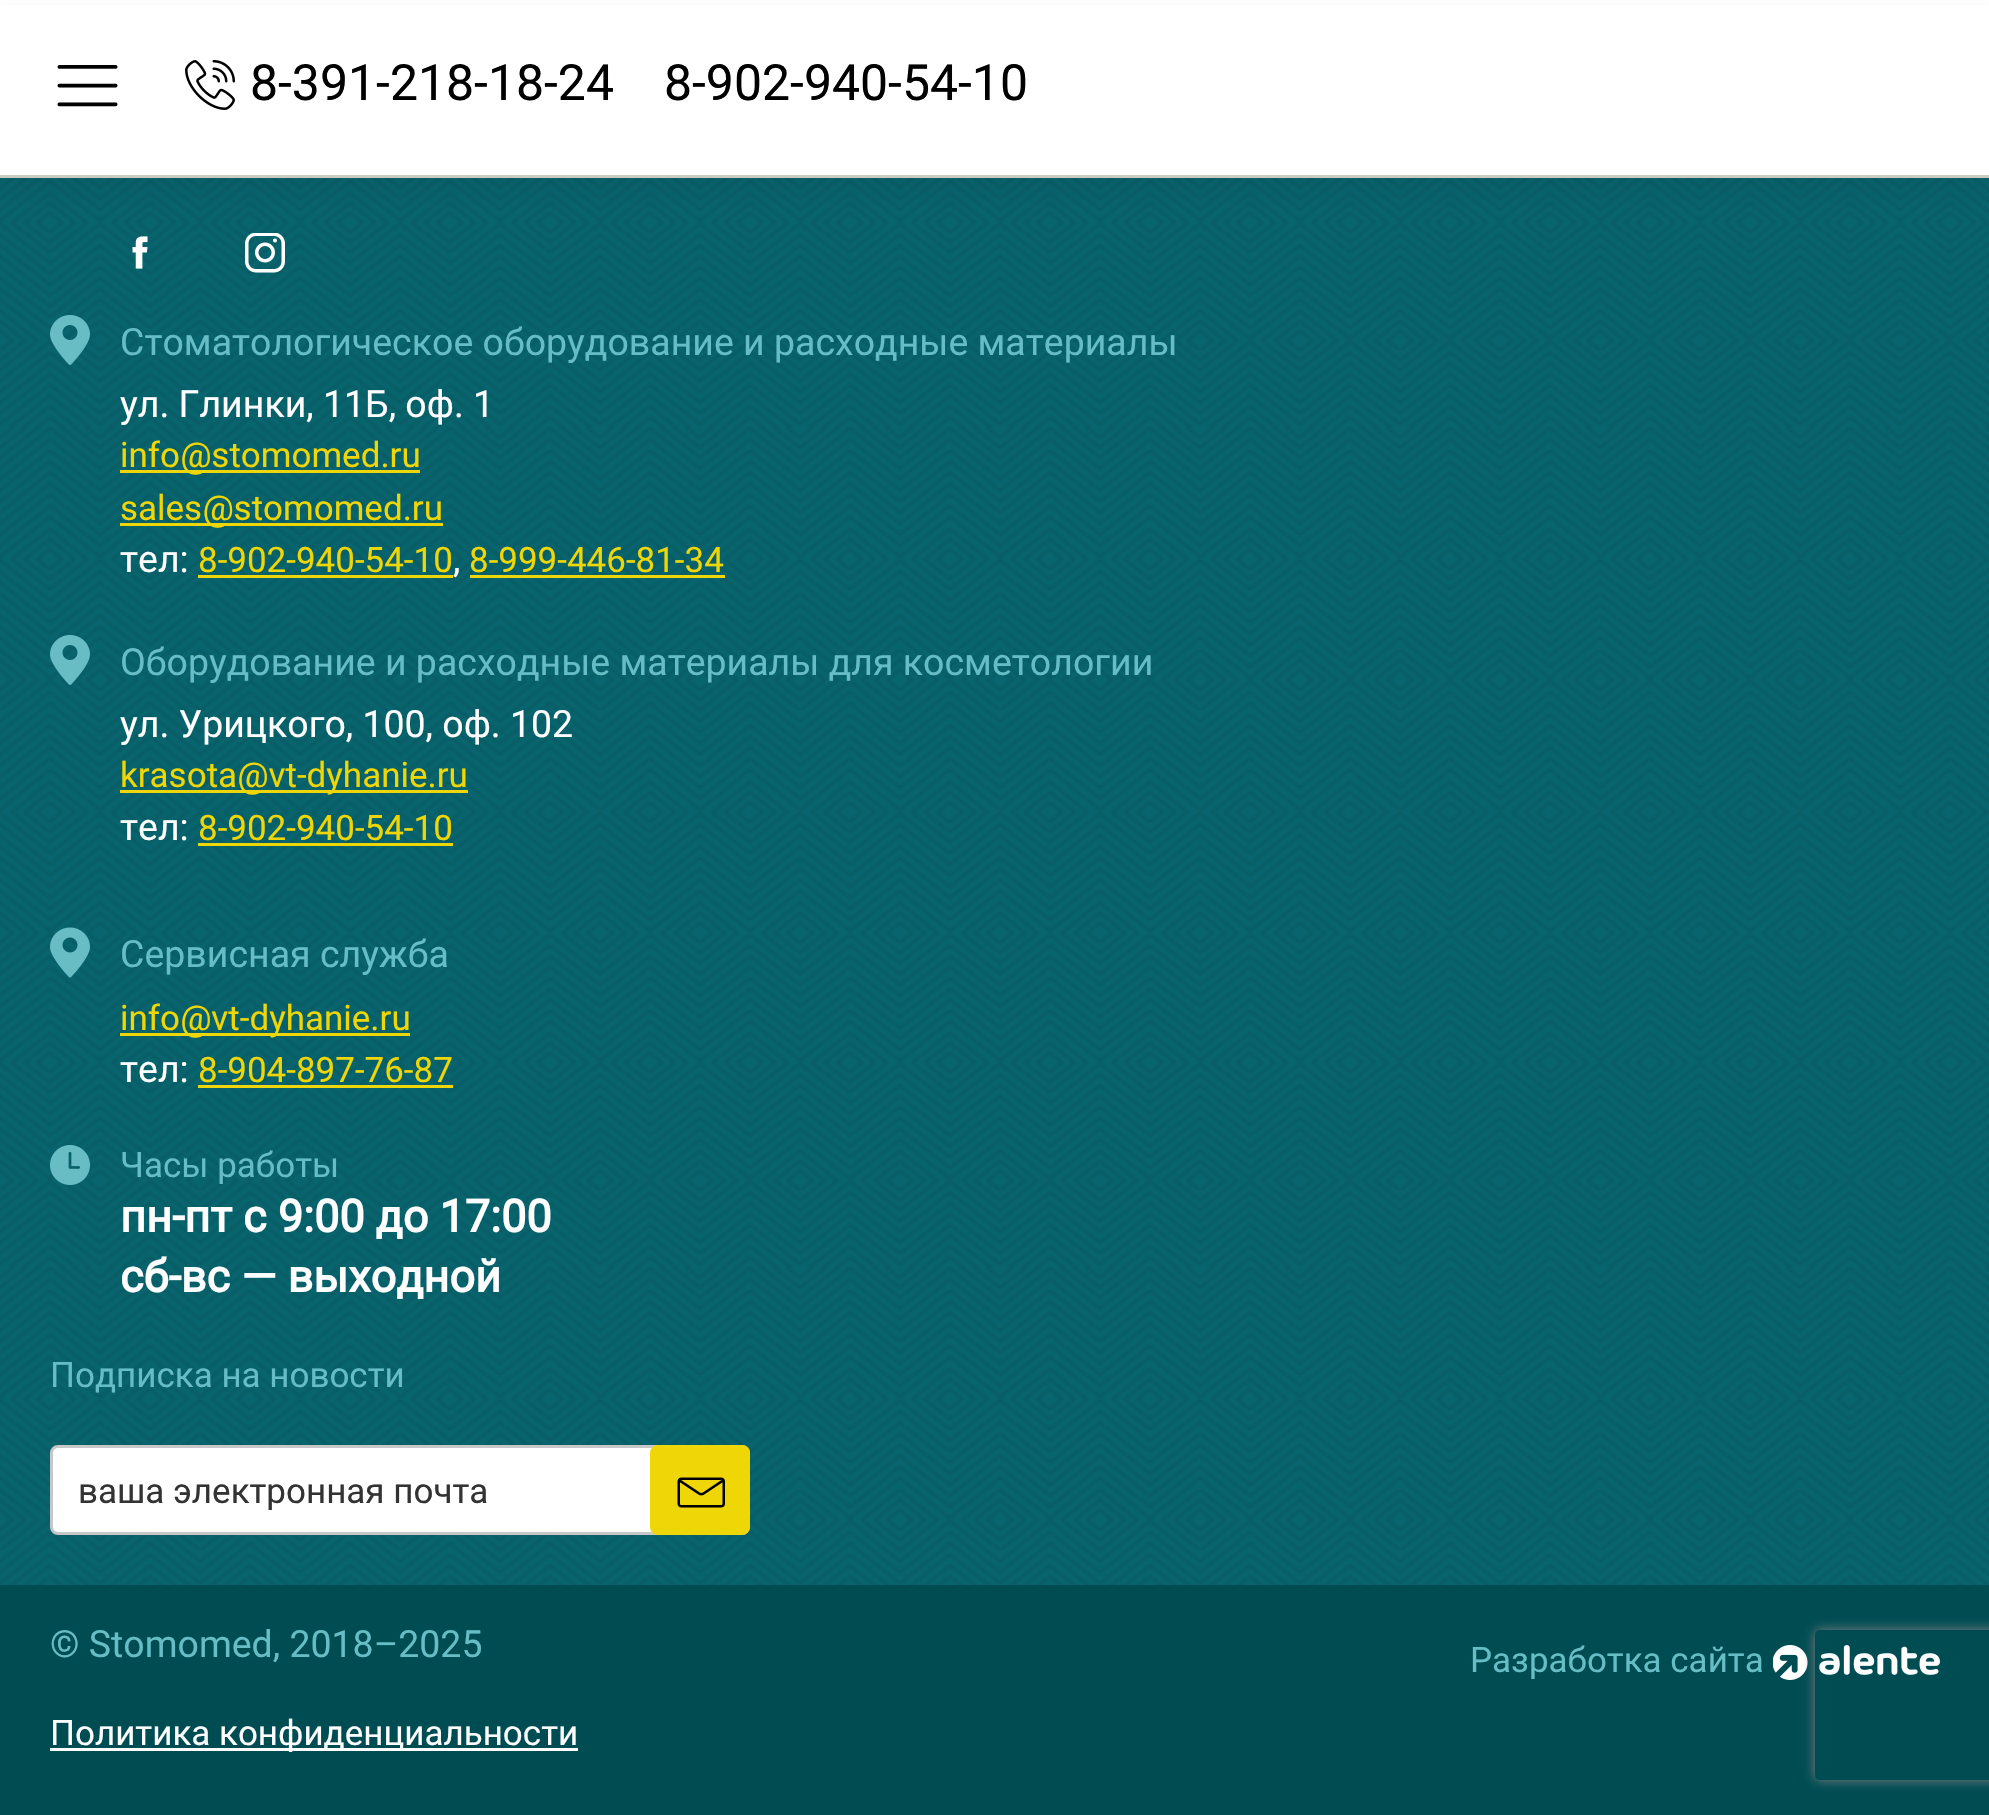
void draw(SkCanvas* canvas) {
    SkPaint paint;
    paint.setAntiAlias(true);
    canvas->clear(0xFFFFFFFF);
    canvas->drawImageRect(SkImages::DeferredFromEncodedData(SkData::MakeFromFileName("img3.png")), SkRect::MakeXYWH(0, 178, 1989, 1407), SkSamplingOptions());
    paint.setColor(0x0D000000);
    paint.setMaskFilter(SkMaskFilter::MakeBlur(kNormal_SkBlurStyle, 10));
    canvas->drawRect(SkRect::MakeXYWH(0, 13, 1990, 177), paint);
    paint.setMaskFilter(nullptr);
    paint.setColor(0xFFFFFFFF);
    canvas->drawRect(SkRect::MakeXYWH(0, 5, 1989, 170), paint);
    paint.setColor(0xFFCBCBC0);
    canvas->drawRect(SkRect::MakeXYWH(0, 175, 1989, 3), paint);
    canvas->drawImageRect(SkImages::DeferredFromEncodedData(SkData::MakeFromFileName("img1.png")), SkRect::MakeXYWH(57, 65, 61, 42), SkSamplingOptions());
    canvas->drawImageRect(SkImages::DeferredFromEncodedData(SkData::MakeFromFileName("img2.png")), SkRect::MakeXYWH(185, 60, 50, 50), SkSamplingOptions());
    SkFont font1(fontMgr->matchFamilyStyle("Roboto", SkFontStyle::Normal()), 50);
    font1.setSubpixel(true);
    paint.setColor(0xFF000000);
    canvas->drawString("8-391-218-18-24", 250, 100, font1, paint);
    canvas->drawString("8-902-940-54-10", 664, 100, font1, paint);
    canvas->drawImageRect(SkImages::DeferredFromEncodedData(SkData::MakeFromFileName("img4.png")), SkRect::MakeXYWH(132, 236, 16, 33), SkSamplingOptions());
    canvas->drawImageRect(SkImages::DeferredFromEncodedData(SkData::MakeFromFileName("img5.png")), SkRect::MakeXYWH(245, 233, 40, 40), SkSamplingOptions());
    canvas->drawImageRect(SkImages::DeferredFromEncodedData(SkData::MakeFromFileName("img6.png")), SkRect::MakeXYWH(50, 315, 40, 50), SkSamplingOptions());
    SkFont font2(fontMgr->matchFamilyStyle("Roboto", SkFontStyle::Normal()), 37.5f);
    font2.setSubpixel(true);
    paint.setColor(0xFF67BDC5);
    canvas->drawString("Стоматологическое оборудование и расходные материалы", 120, 355, font2, paint);
    paint.setColor(0xFFFFFFFF);
    canvas->drawString("ул. Глинки, 11Б, оф. 1", 120, 417, font2, paint);
    paint.setColor(0xFFEFD606);
    canvas->drawRect(SkRect::MakeXYWH(120, 470, 300, 3), paint);
    SkFont font3(fontMgr->matchFamilyStyle("Roboto", SkFontStyle::Normal()), 35);
    font3.setSubpixel(true);
    canvas->drawString("info@stomomed.ru", 120, 467, font3, paint);
    canvas->drawRect(SkRect::MakeXYWH(120, 523, 323, 3), paint);
    canvas->drawString("sales@stomomed.ru", 120, 520, font3, paint);
    paint.setColor(0xFFFFFFFF);
    canvas->drawString("тел:", 120, 572, font2, paint);
    paint.setColor(0xFFEFD606);
    canvas->drawString("8-902-940-54-10", 198, 572, font3, paint);
    canvas->drawRect(SkRect::MakeXYWH(198, 575, 255, 3), paint);
    paint.setColor(0xFFFFFFFF);
    canvas->drawString(",", 453, 572, font2, paint);
    paint.setColor(0xFFEFD606);
    canvas->drawString("8-999-446-81-34", 469, 572, font3, paint);
    canvas->drawRect(SkRect::MakeXYWH(470, 575, 255, 3), paint);
    canvas->drawImageRect(SkImages::DeferredFromEncodedData(SkData::MakeFromFileName("img7.png")), SkRect::MakeXYWH(50, 635, 40, 50), SkSamplingOptions());
    paint.setColor(0xFF67BDC5);
    canvas->drawString("Оборудование и расходные материалы для косметологии", 120, 675, font2, paint);
    paint.setColor(0xFFFFFFFF);
    canvas->drawString("ул. Урицкого, 100, оф. 102", 120, 737, font2, paint);
    paint.setColor(0xFFEFD606);
    canvas->drawRect(SkRect::MakeXYWH(120, 790, 348, 3), paint);
    canvas->drawString("krasota@vt-dyhanie.ru", 120, 787, font3, paint);
    paint.setColor(0xFFFFFFFF);
    canvas->drawString("тел:", 120, 840, font2, paint);
    paint.setColor(0xFFEFD606);
    canvas->drawString("8-902-940-54-10", 198, 840, font3, paint);
    canvas->drawRect(SkRect::MakeXYWH(198, 843, 255, 3), paint);
    canvas->drawImageRect(SkImages::DeferredFromEncodedData(SkData::MakeFromFileName("img8.png")), SkRect::MakeXYWH(50, 927, 40, 51), SkSamplingOptions());
    paint.setColor(0xFF67BDC5);
    canvas->drawString("Сервисная служба", 120, 967, font2, paint);
    paint.setColor(0xFFEFD606);
    canvas->drawRect(SkRect::MakeXYWH(120, 1033, 290, 3), paint);
    canvas->drawString("info@vt-dyhanie.ru", 120, 1030, font3, paint);
    paint.setColor(0xFFFFFFFF);
    canvas->drawString("тел:", 120, 1082, font2, paint);
    paint.setColor(0xFFEFD606);
    canvas->drawString("8-904-897-76-87", 198, 1082, font3, paint);
    canvas->drawRect(SkRect::MakeXYWH(198, 1085, 255, 3), paint);
    canvas->drawImageRect(SkImages::DeferredFromEncodedData(SkData::MakeFromFileName("img9.png")), SkRect::MakeXYWH(50, 1145, 40, 40), SkSamplingOptions());
    paint.setColor(0xFF67BDC5);
    canvas->drawString("Часы работы", 120, 1177, font3, paint);
    SkFont font4(fontMgr->matchFamilyStyle("Roboto", SkFontStyle::Bold()), 45);
    font4.setSubpixel(true);
    paint.setColor(0xFFFFFFFF);
    canvas->drawString("пн-пт с 9:00 до 17:00", 120, 1232, font4, paint);
    canvas->drawString("сб-вс — выходной", 120, 1292, font4, paint);
    paint.setColor(0xFF67BDC5);
    canvas->drawString("Подписка на новости", 50, 1387, font3, paint);
    paint.setColor(0xFFFFFFFF);
    canvas->drawRoundRect(SkRect::MakeXYWH(51.5f, 1446.5f, 697, 87), 6.5f, 6.5f, paint);
    paint.setStyle(SkPaint::kStroke_Style);
    paint.setStrokeWidth(3);
    paint.setColor(0xFFC7C7C7);
    canvas->drawRoundRect(SkRect::MakeXYWH(51.5f, 1446.5f, 697, 87), 6.5f, 6.5f, paint);
    paint.setStyle(SkPaint::kFill_Style);
    paint.setColor(0xFF333333);
    canvas->drawString("ваша электронная почта", 78, 1503, font3, paint);
    paint.setColor(0xFFEFD606);
    canvas->drawRoundRect(SkRect::MakeXYWH(650, 1445, 100, 90), 8, 8, paint);
    canvas->drawImageRect(SkImages::DeferredFromEncodedData(SkData::MakeFromFileName("img10.png")), SkRect::MakeXYWH(677, 1477, 48, 31), SkSamplingOptions());
    paint.setColor(0xFF004C53);
    canvas->drawRect(SkRect::MakeXYWH(0, 1585, 1989, 230), paint);
    canvas->drawImageRect(SkImages::DeferredFromEncodedData(SkData::MakeFromFileName("img11.png")), SkRect::MakeXYWH(1773, 1645, 167, 35), SkSamplingOptions());
    canvas->save();
    canvas->clipPath(SkPathBuilder(SkPathFillType::kEvenOdd).moveTo(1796, 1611).lineTo(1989, 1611).lineTo(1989, 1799).lineTo(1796, 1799).close().moveTo(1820, 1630).lineTo(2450, 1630).cubicTo(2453, 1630, 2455, 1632, 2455, 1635).lineTo(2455, 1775).cubicTo(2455, 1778, 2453, 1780, 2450, 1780).lineTo(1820, 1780).cubicTo(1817, 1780, 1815, 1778, 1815, 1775).lineTo(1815, 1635).cubicTo(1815, 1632, 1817, 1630, 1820, 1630).close().detach(), true);
    paint.setColor(0xFF808080);
    paint.setMaskFilter(SkMaskFilter::MakeBlur(kNormal_SkBlurStyle, 6));
    canvas->drawRoundRect(SkRect::MakeXYWH(1815, 1630, 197, 150), 5, 5, paint);
    paint.setMaskFilter(nullptr);
    canvas->restore();
    paint.setColor(0xFF67BDC5);
    canvas->drawString("© Stomomed, 2018–2025", 50, 1657, font2, paint);
    paint.setColor(0xFFFFFFFF);
    canvas->drawRect(SkRect::MakeXYWH(50, 1748, 528, 3), paint);
    canvas->drawString("Политика конфиденциальности", 50, 1745, font3, paint);
    paint.setColor(0xFF67BDC5);
    canvas->drawString("Разработка сайта", 1470, 1672, font3, paint);
}
